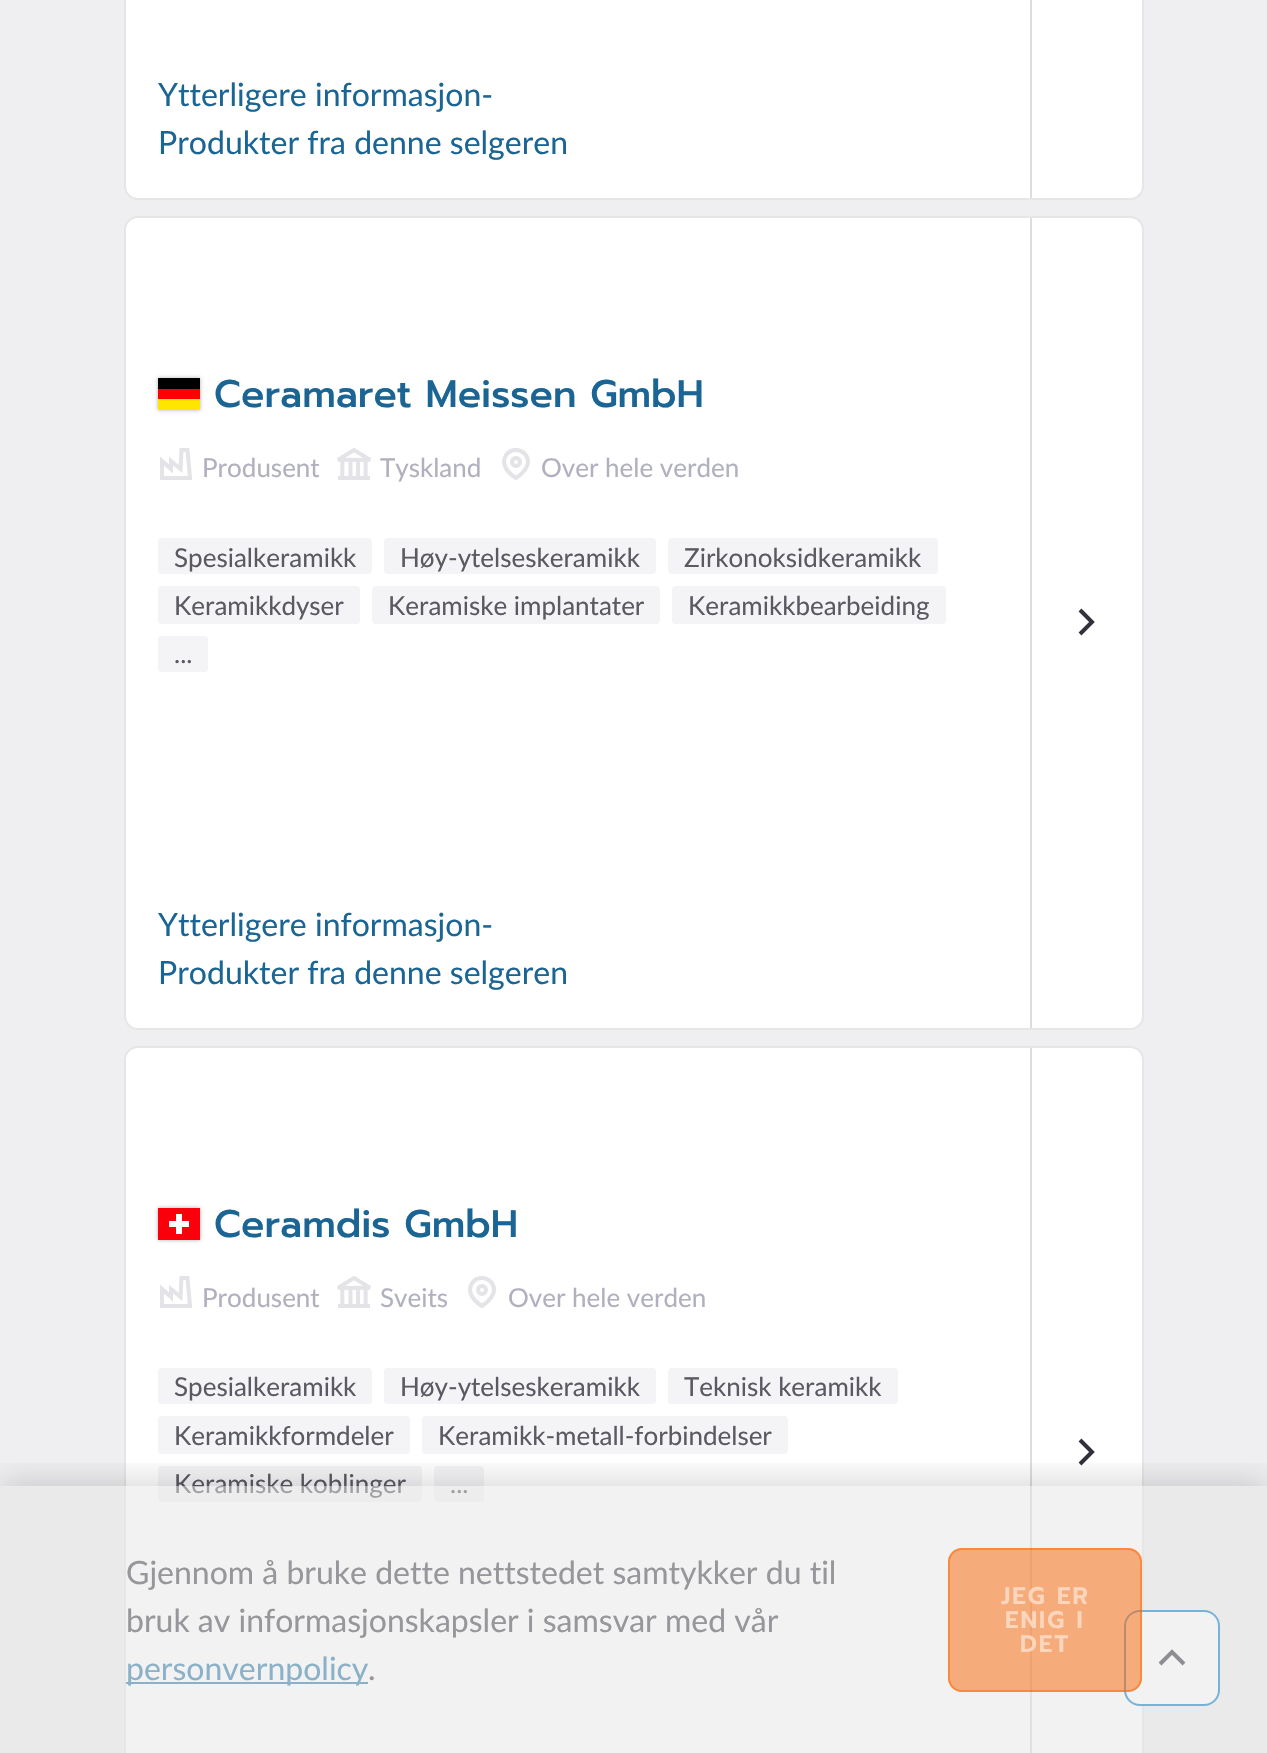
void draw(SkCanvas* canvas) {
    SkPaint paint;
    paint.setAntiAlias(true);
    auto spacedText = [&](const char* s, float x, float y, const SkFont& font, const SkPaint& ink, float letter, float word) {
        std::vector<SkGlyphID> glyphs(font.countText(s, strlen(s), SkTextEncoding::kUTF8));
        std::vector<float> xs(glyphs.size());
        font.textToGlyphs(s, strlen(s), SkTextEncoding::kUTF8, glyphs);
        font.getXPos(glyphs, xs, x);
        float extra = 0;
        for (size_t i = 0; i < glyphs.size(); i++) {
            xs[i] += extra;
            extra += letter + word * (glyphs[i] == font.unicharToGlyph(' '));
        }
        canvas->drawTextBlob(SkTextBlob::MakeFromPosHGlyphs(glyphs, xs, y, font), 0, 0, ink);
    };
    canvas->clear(0xFFEFEFF1);
    paint.setColor(0xFFFFFFFF);
    canvas->drawRoundRect(SkRect::MakeXYWH(124, -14, 1020, 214), 14, 14, paint);
    paint.setStyle(SkPaint::kStroke_Style);
    paint.setStrokeWidth(2);
    paint.setColor(0x1F31313B);
    canvas->drawRoundRect(SkRect::MakeXYWH(125, -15, 1018, 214), 13, 13, paint);
    SkFont font1(fontMgr->matchFamilyStyle("Lato", SkFontStyle::Normal()), 32);
    font1.setSubpixel(true);
    paint.setStyle(SkPaint::kFill_Style);
    paint.setColor(0xFF1B6595);
    canvas->drawString("Ytterligere informasjon-", 158, 106, font1, paint);
    canvas->drawString("Produkter fra denne selgeren", 158, 154, font1, paint);
    paint.setColor(0xFFDDDDDD);
    canvas->drawRect(SkRect::MakeXYWH(1030, 0, 2, 198), paint);
    paint.setColor(0xFFFFFFFF);
    canvas->drawRoundRect(SkRect::MakeXYWH(124, 216, 1020, 814), 14, 14, paint);
    paint.setStyle(SkPaint::kStroke_Style);
    paint.setColor(0x1F31313B);
    canvas->drawRoundRect(SkRect::MakeXYWH(125, 217, 1018, 812), 13, 13, paint);
    paint.setStyle(SkPaint::kFill_Style);
    paint.setColor(0x4D000000);
    paint.setMaskFilter(SkMaskFilter::MakeBlur(kNormal_SkBlurStyle, 2));
    canvas->drawRect(SkRect::MakeXYWH(158, 378, 42, 32), paint);
    paint.setMaskFilter(nullptr);
    paint.setColor(0xFFFFE600);
    canvas->drawRect(SkRect::MakeXYWH(158, 399, 42, 11), paint);
    paint.setColor(0xFF000000);
    canvas->drawRect(SkRect::MakeXYWH(158, 378, 42, 11), paint);
    paint.setColor(0xFFFF0000);
    canvas->drawRect(SkRect::MakeXYWH(158, 389, 42, 10), paint);
    SkFont font2(fontMgr->matchFamilyStyle("Prompt", SkFontStyle(500, SkFontStyle::kNormal_Width, SkFontStyle::kUpright_Slant)), 38.4f);
    font2.setSubpixel(true);
    paint.setColor(0xFF1B6595);
    canvas->drawString("Ceramaret Meissen GmbH", 214, 407, font2, paint);
    paint.setColor(0xFFDDDDDD);
    canvas->drawRect(SkRect::MakeXYWH(1030, 218, 2, 810), paint);
    paint.setStyle(SkPaint::kStroke_Style);
    paint.setStrokeWidth(4);
    paint.setColor(0xFF31313B);
    canvas->drawPath(SkPathBuilder().moveTo(1080, 634).lineTo(1092, 622).lineTo(1080, 610).detach(), paint);
    paint.setColor(0xFFE3E3E8);
    canvas->drawPath(SkPathBuilder().moveTo(190, 478).lineTo(187.5f, 450).lineTo(181.5f, 450).lineTo(180.5f, 469).lineTo(171, 461).lineTo(171, 469).lineTo(162, 461).lineTo(162, 478).close().detach(), paint);
    SkFont font3(fontMgr->matchFamilyStyle("Lato", SkFontStyle::Normal()), 26);
    font3.setSubpixel(true);
    paint.setStyle(SkPaint::kFill_Style);
    paint.setColor(0xFFB0B0BE);
    canvas->drawString("Produsent", 202, 477, font3, paint);
    canvas->drawImageRect(SkImages::DeferredFromEncodedData(SkData::MakeFromFileName("img1.png")), SkRect::MakeXYWH(337, 448, 34, 32), SkSamplingOptions());
    canvas->drawString("Tyskland", 380, 477, font3, paint);
    paint.setStyle(SkPaint::kStroke_Style);
    paint.setColor(0xFFE3E3E8);
    canvas->drawPath(SkPathBuilder().moveTo(528, 461.5f).cubicTo(528, 470.5f, 516, 478, 516, 478).cubicTo(490.5f, 462, 512, 441.5f, 524.5f, 453.5f).cubicTo(526.5f, 455.5f, 528, 458.5f, 528, 461.5f).close().detach(), paint);
    canvas->drawCircle(516, 462, 4, paint);
    paint.setStyle(SkPaint::kFill_Style);
    paint.setColor(0xFFB0B0BE);
    canvas->drawString("Over hele verden", 541, 477, font3, paint);
    paint.setColor(0xFFF4F4F6);
    canvas->drawRoundRect(SkRect::MakeXYWH(158, 538, 214, 36), 4, 4, paint);
    paint.setColor(0xFF5A5A62);
    canvas->drawString("Spesialkeramikk", 174, 567, font3, paint);
    paint.setColor(0xFFF4F4F6);
    canvas->drawRoundRect(SkRect::MakeXYWH(384, 538, 272, 36), 4, 4, paint);
    paint.setColor(0xFF5A5A62);
    canvas->drawString("Høy-ytelseskeramikk", 400, 567, font3, paint);
    paint.setColor(0xFFF4F4F6);
    canvas->drawRoundRect(SkRect::MakeXYWH(668, 538, 270, 36), 4, 4, paint);
    paint.setColor(0xFF5A5A62);
    canvas->drawString("Zirkonoksidkeramikk", 684, 567, font3, paint);
    paint.setColor(0xFFF4F4F6);
    canvas->drawRoundRect(SkRect::MakeXYWH(158, 586, 202, 38), 4, 4, paint);
    paint.setColor(0xFF5A5A62);
    canvas->drawString("Keramikkdyser", 174, 615, font3, paint);
    paint.setColor(0xFFF4F4F6);
    canvas->drawRoundRect(SkRect::MakeXYWH(372, 586, 288, 38), 4, 4, paint);
    paint.setColor(0xFF5A5A62);
    canvas->drawString("Keramiske implantater", 388, 615, font3, paint);
    paint.setColor(0xFFF4F4F6);
    canvas->drawRoundRect(SkRect::MakeXYWH(672, 586, 274, 38), 4, 4, paint);
    paint.setColor(0xFF5A5A62);
    canvas->drawString("Keramikkbearbeiding", 688, 615, font3, paint);
    paint.setColor(0xFFF4F4F6);
    canvas->drawRoundRect(SkRect::MakeXYWH(158, 636, 50, 36), 4, 4, paint);
    paint.setColor(0xFF5A5A62);
    canvas->drawString("...", 174, 663, font3, paint);
    paint.setColor(0xFF1B6595);
    canvas->drawString("Ytterligere informasjon-", 158, 936, font1, paint);
    canvas->drawString("Produkter fra denne selgeren", 158, 984, font1, paint);
    paint.setColor(0xFFFFFFFF);
    canvas->drawRoundRect(SkRect::MakeXYWH(124, 1046, 1020, 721), 14, 14, paint);
    paint.setStyle(SkPaint::kStroke_Style);
    paint.setStrokeWidth(2);
    paint.setColor(0x1F31313B);
    canvas->drawRoundRect(SkRect::MakeXYWH(125, 1047, 1018, 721), 13, 13, paint);
    paint.setStyle(SkPaint::kFill_Style);
    paint.setColor(0x4D000000);
    paint.setMaskFilter(SkMaskFilter::MakeBlur(kNormal_SkBlurStyle, 2));
    canvas->drawRect(SkRect::MakeXYWH(158, 1208, 42, 32), paint);
    paint.setMaskFilter(nullptr);
    paint.setColor(0xFFFA000B);
    canvas->drawRect(SkRect::MakeXYWH(158, 1208, 42, 32), paint);
    paint.setColor(0xFFFFFFFF);
    canvas->drawRect(SkRect::MakeXYWH(169, 1221, 20, 6), paint);
    canvas->drawRect(SkRect::MakeXYWH(176, 1214, 6, 20), paint);
    paint.setColor(0xFF1B6595);
    canvas->drawString("Ceramdis GmbH", 214, 1237, font2, paint);
    paint.setColor(0xFFDDDDDD);
    canvas->drawRect(SkRect::MakeXYWH(1030, 1048, 2, 705), paint);
    paint.setStyle(SkPaint::kStroke_Style);
    paint.setStrokeWidth(4);
    paint.setColor(0xFF31313B);
    canvas->drawPath(SkPathBuilder().moveTo(1080, 1464).lineTo(1092, 1452).lineTo(1080, 1440).detach(), paint);
    paint.setColor(0xFFE3E3E8);
    canvas->drawPath(SkPathBuilder().moveTo(190, 1306).lineTo(187.5f, 1278).lineTo(181.5f, 1278).lineTo(180.5f, 1297).lineTo(171, 1289).lineTo(171, 1297).lineTo(162, 1289).lineTo(162, 1306).close().detach(), paint);
    paint.setStyle(SkPaint::kFill_Style);
    paint.setColor(0xFFB0B0BE);
    canvas->drawString("Produsent", 202, 1307, font3, paint);
    canvas->drawImageRect(SkImages::DeferredFromEncodedData(SkData::MakeFromFileName("img1.png")), SkRect::MakeXYWH(337, 1276, 34, 32), SkSamplingOptions());
    canvas->drawString("Sveits", 380, 1307, font3, paint);
    paint.setStyle(SkPaint::kStroke_Style);
    paint.setColor(0xFFE3E3E8);
    canvas->drawPath(SkPathBuilder().moveTo(494, 1289.5f).cubicTo(494, 1298.5f, 482, 1306, 482, 1306).cubicTo(456.5f, 1290, 478, 1269.5f, 490.5f, 1281.5f).cubicTo(492.5f, 1283.5f, 494, 1286.5f, 494, 1289.5f).close().detach(), paint);
    canvas->drawCircle(482, 1290, 4, paint);
    paint.setStyle(SkPaint::kFill_Style);
    paint.setColor(0xFFB0B0BE);
    canvas->drawString("Over hele verden", 508, 1307, font3, paint);
    paint.setColor(0xFFF4F4F6);
    canvas->drawRoundRect(SkRect::MakeXYWH(158, 1368, 214, 36), 4, 4, paint);
    paint.setColor(0xFF5A5A62);
    canvas->drawString("Spesialkeramikk", 174, 1396, font3, paint);
    paint.setColor(0xFFF4F4F6);
    canvas->drawRoundRect(SkRect::MakeXYWH(384, 1368, 272, 36), 4, 4, paint);
    paint.setColor(0xFF5A5A62);
    canvas->drawString("Høy-ytelseskeramikk", 400, 1396, font3, paint);
    paint.setColor(0xFFF4F4F6);
    canvas->drawRoundRect(SkRect::MakeXYWH(668, 1368, 230, 36), 4, 4, paint);
    paint.setColor(0xFF5A5A62);
    canvas->drawString("Teknisk keramikk", 684, 1396, font3, paint);
    paint.setColor(0xFFF4F4F6);
    canvas->drawRoundRect(SkRect::MakeXYWH(158, 1416, 252, 38), 4, 4, paint);
    paint.setColor(0xFF5A5A62);
    canvas->drawString("Keramikkformdeler", 174, 1445, font3, paint);
    paint.setColor(0xFFF4F4F6);
    canvas->drawRoundRect(SkRect::MakeXYWH(422, 1416, 366, 38), 4, 4, paint);
    paint.setColor(0xFF5A5A62);
    canvas->drawString("Keramikk-metall-forbindelser", 438, 1445, font3, paint);
    paint.setColor(0xFFF4F4F6);
    canvas->drawRoundRect(SkRect::MakeXYWH(158, 1466, 264, 36), 4, 4, paint);
    paint.setColor(0xFF5A5A62);
    canvas->drawString("Keramiske koblinger", 174, 1493, font3, paint);
    paint.setColor(0xFFF4F4F6);
    canvas->drawRoundRect(SkRect::MakeXYWH(434, 1466, 50, 36), 4, 4, paint);
    paint.setColor(0xFF5A5A62);
    canvas->drawString("...", 450, 1493, font3, paint);
    paint.setColor(0xFFFFFFFF);
    canvas->drawRoundRect(SkRect::MakeXYWH(1125, 1611, 94, 94), 15, 15, paint);
    paint.setStyle(SkPaint::kStroke_Style);
    paint.setStrokeWidth(2);
    paint.setColor(0xFF017CCC);
    canvas->drawRoundRect(SkRect::MakeXYWH(1125, 1611, 94, 94), 15, 15, paint);
    paint.setStrokeWidth(4);
    paint.setColor(0xFF31313B);
    canvas->drawPath(SkPathBuilder().moveTo(1184, 1664).lineTo(1172, 1652).lineTo(1160, 1664).detach(), paint);
    canvas->save();
    canvas->clipRect(SkRect::MakeXYWH(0, 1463, 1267, 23));
    paint.setStyle(SkPaint::kFill_Style);
    paint.setColor(0x26000000);
    paint.setMaskFilter(SkMaskFilter::MakeBlur(kNormal_SkBlurStyle, 15));
    canvas->drawRect(SkRect::MakeXYWH(0, 1480, 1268, 268), paint);
    paint.setMaskFilter(nullptr);
    canvas->restore();
    paint.setColor(0x82E6E6E6);
    canvas->drawRect(SkRect::MakeXYWH(0, 1486, 1267, 267), paint);
    paint.setColor(0xFF96969B);
    canvas->drawString("Gjennom å bruke dette nettstedet samtykker du til", 126, 1584, font1, paint);
    canvas->drawString("bruk av informasjonskapsler i samsvar med vår", 126, 1632, font1, paint);
    paint.setColor(0xFF8BB1C9);
    canvas->drawRect(SkRect::MakeXYWH(126, 1682, 242, 2), paint);
    canvas->drawString("personvernpolicy", 126, 1680, font1, paint);
    paint.setColor(0xFF96969B);
    canvas->drawString(".", 368, 1680, font1, paint);
    paint.setColor(0x82FA6705);
    canvas->drawRoundRect(SkRect::MakeXYWH(948, 1548, 194, 144), 14, 14, paint);
    paint.setStyle(SkPaint::kStroke_Style);
    paint.setStrokeWidth(2);
    canvas->drawRoundRect(SkRect::MakeXYWH(949, 1549, 192, 142), 13, 13, paint);
    SkFont font4(fontMgr->matchFamilyStyle("Prompt", SkFontStyle(600, SkFontStyle::kNormal_Width, SkFontStyle::kUpright_Slant)), 24);
    font4.setSubpixel(true);
    paint.setStyle(SkPaint::kFill_Style);
    paint.setColor(0xFFFBD6BD);
    spacedText("JEG ER", 1001, 1604, font4, paint, 2, 0);
    spacedText("ENIG I", 1005, 1628, font4, paint, 2, 0);
    spacedText("DET", 1020, 1652, font4, paint, 2, 0);
}
